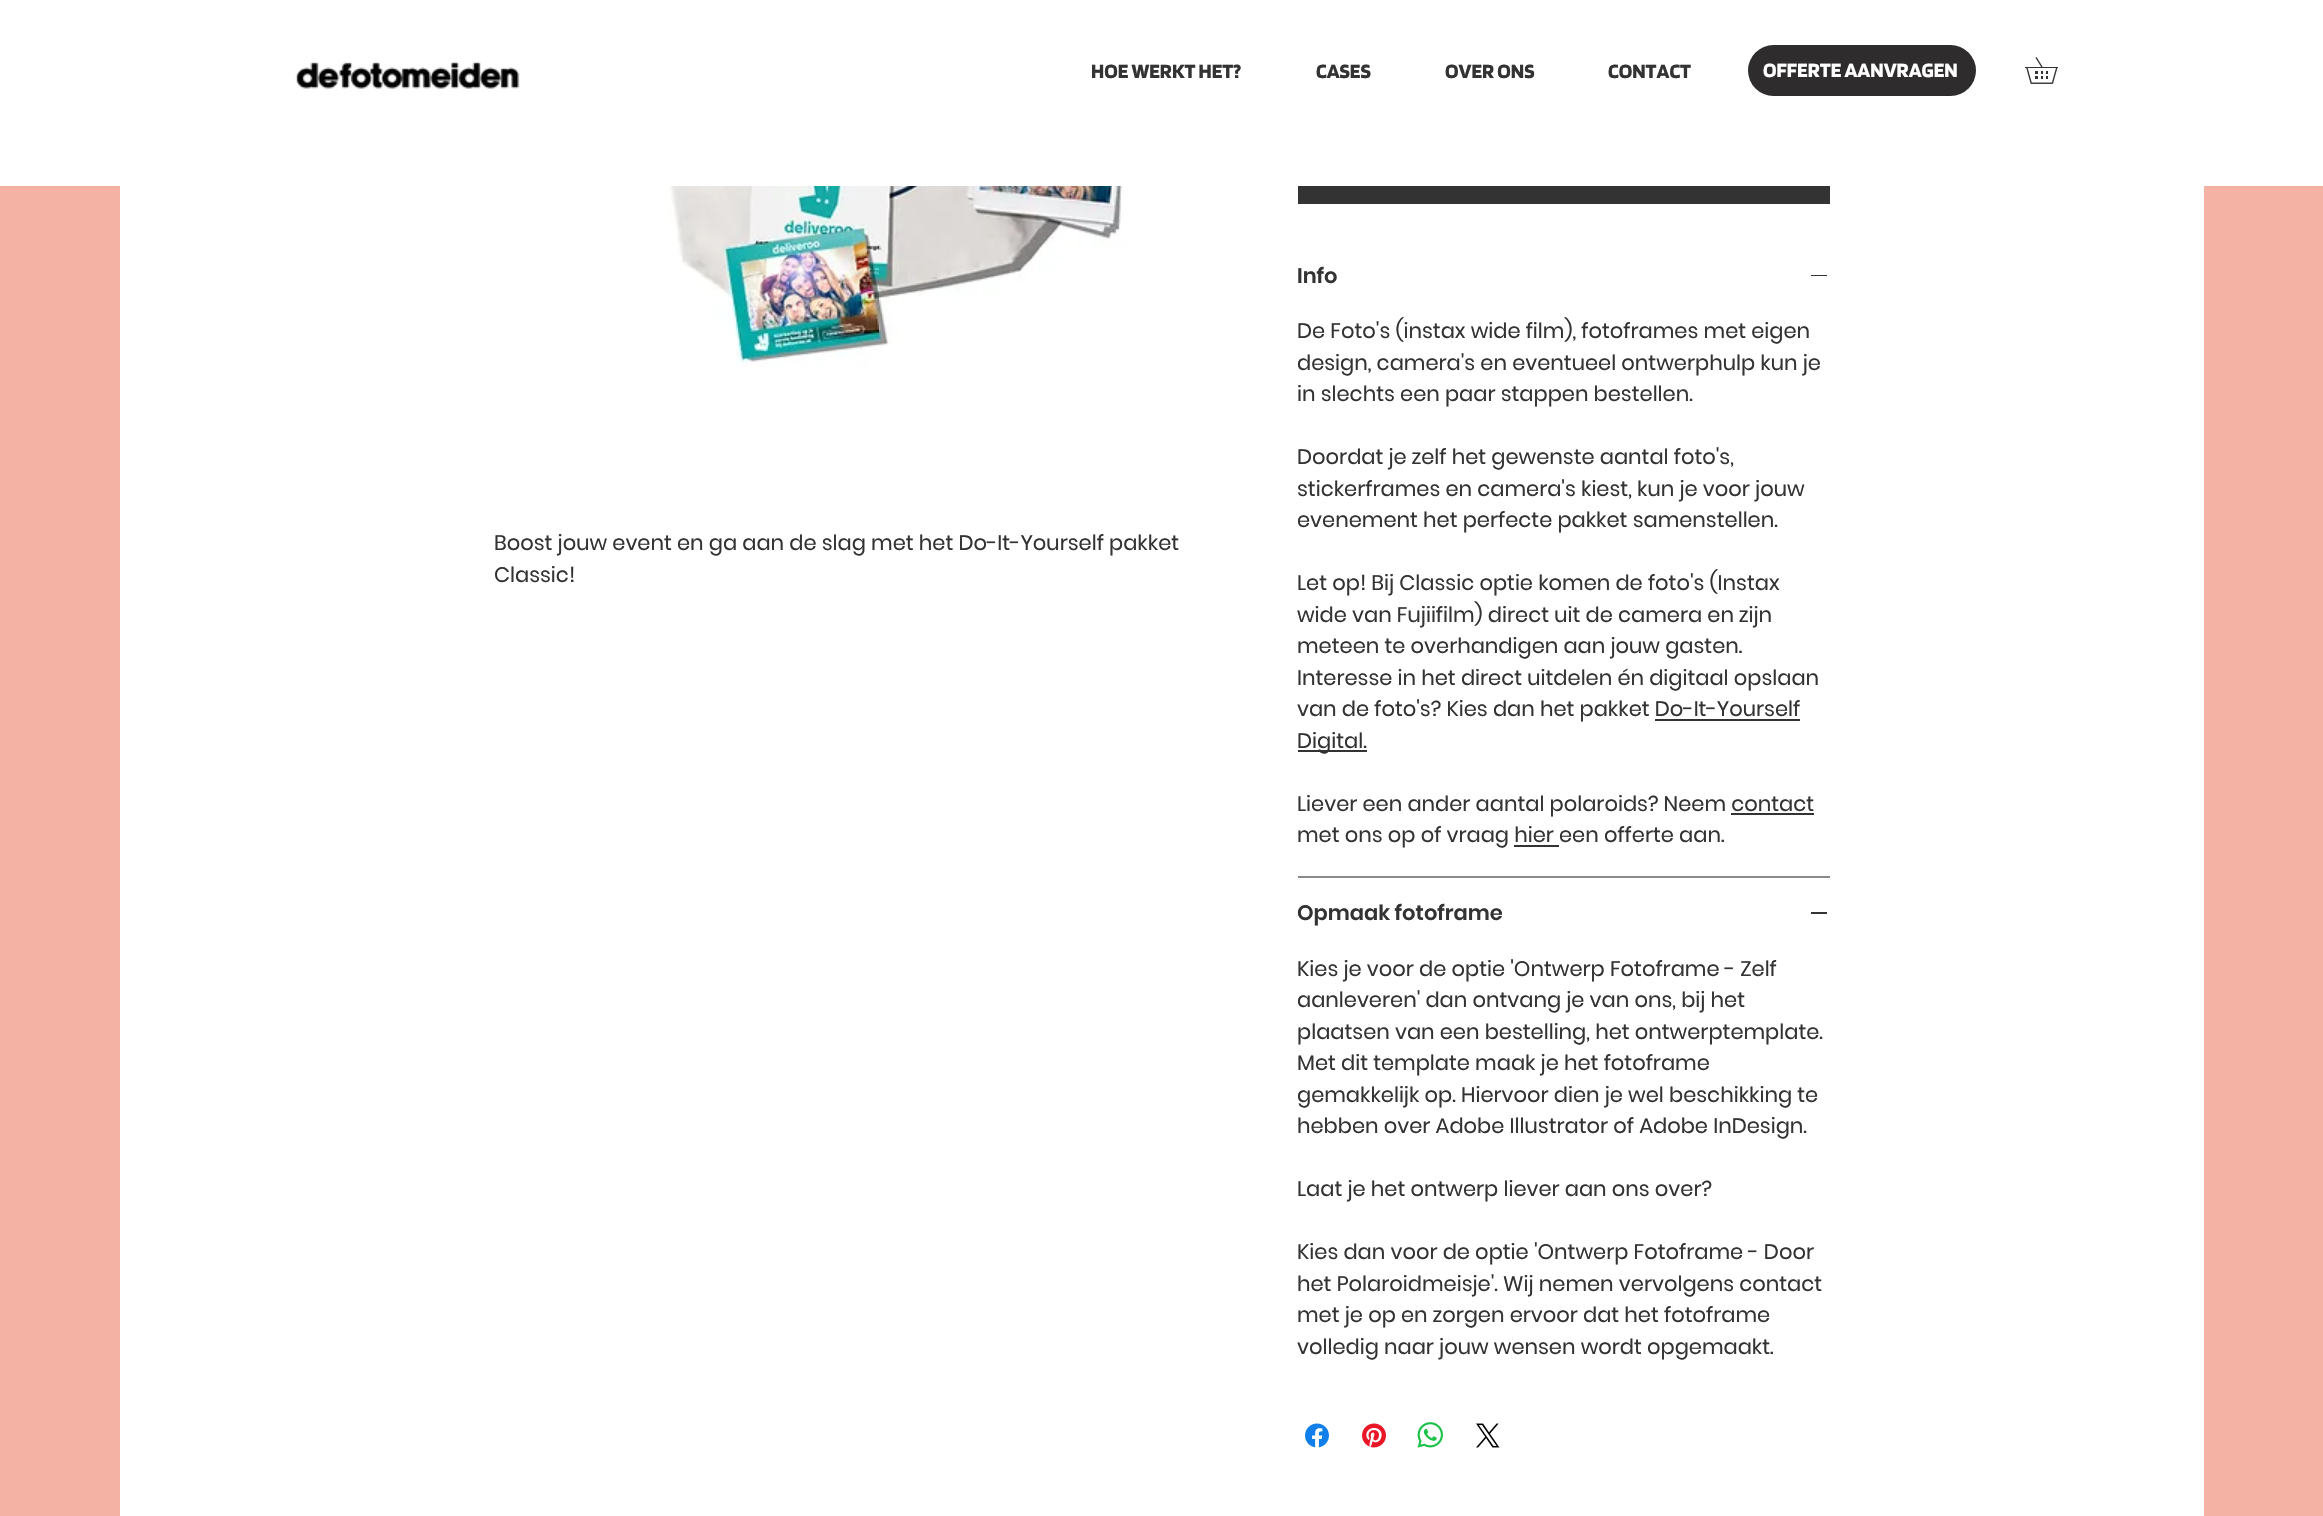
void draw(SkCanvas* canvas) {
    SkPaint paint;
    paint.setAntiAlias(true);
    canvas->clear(0xFFF4B2A4);
    paint.setColor(0xFFFFFFFF);
    canvas->drawRect(SkRect::MakeXYWH(0, 0, 2323, 186), paint);
    canvas->drawImageRect(SkImages::DeferredFromEncodedData(SkData::MakeFromFileName("img1.png")), SkRect::MakeXYWH(295, 61, 225, 28), SkSamplingOptions());
    SkFont font1(fontMgr->matchFamilyStyle("Blinker", SkFontStyle::Bold()), 21);
    font1.setSubpixel(true);
    paint.setColor(0xFF333333);
    canvas->drawString("HOE WERKT HET?", 1091, 78, font1, paint);
    canvas->drawString("CASES", 1316, 78, font1, paint);
    canvas->drawString("OVER ONS", 1445, 78, font1, paint);
    canvas->drawString("CONTACT", 1608, 78, font1, paint);
    paint.setColor(0xFF2E2C2C);
    canvas->drawRoundRect(SkRect::MakeXYWH(1748, 45, 228, 51), 25.5f, 25.5f, paint);
    paint.setColor(0xFFFFFFFF);
    canvas->drawString("OFFERTE AANVRAGEN", 1763, 77, font1, paint);
    canvas->drawImageRect(SkImages::DeferredFromEncodedData(SkData::MakeFromFileName("img2.png")), SkRect::MakeXYWH(2025, 57, 33, 27), SkSamplingOptions());
    canvas->drawRect(SkRect::MakeXYWH(120, 186, 2084, 1330), paint);
    canvas->drawImageRect(SkImages::DeferredFromEncodedData(SkData::MakeFromFileName("img3.png")), SkRect::MakeXYWH(634, 186, 498, 181), SkSamplingOptions());
    SkFont font2(fontMgr->matchFamilyStyle("Poppins", SkFontStyle::Normal()), 21);
    font2.setSubpixel(true);
    paint.setColor(0xFF333333);
    canvas->drawString("Boost jouw event en ga aan de slag met het Do-It-Yourself pakket", 494, 550, font2, paint);
    canvas->drawString("Classic!", 494, 582, font2, paint);
    canvas->drawRect(SkRect::MakeXYWH(1298, 186, 532, 18), paint);
    paint.setColor(0xFF8A8A8A);
    canvas->drawRect(SkRect::MakeXYWH(1298, 876, 532, 2), paint);
    SkFont font3(fontMgr->matchFamilyStyle("Poppins", SkFontStyle(600, SkFontStyle::kNormal_Width, SkFontStyle::kUpright_Slant)), 21);
    font3.setSubpixel(true);
    paint.setColor(0xFF333333);
    canvas->drawString("Info", 1297, 283, font3, paint);
    canvas->drawRect(SkRect::MakeXYWH(1811, 275, 16, 1), paint);
    canvas->drawString("De Foto's (instax wide film), fotoframes met eigen", 1297, 338, font2, paint);
    canvas->drawString("design, camera's en eventueel ontwerphulp kun je", 1297, 370, font2, paint);
    canvas->drawString("in slechts een paar stappen bestellen.", 1297, 401, font2, paint);
    canvas->drawString("Doordat je zelf het gewenste aantal foto's,", 1297, 464, font2, paint);
    canvas->drawString("stickerframes en camera's kiest, kun je voor jouw", 1297, 496, font2, paint);
    canvas->drawString("evenement het perfecte pakket samenstellen.", 1297, 527, font2, paint);
    canvas->drawString("Let op! Bij Classic optie komen de foto's (Instax", 1297, 590, font2, paint);
    canvas->drawString("wide van Fujiifilm) direct uit de camera en zijn", 1297, 622, font2, paint);
    canvas->drawString("meteen te overhandigen aan jouw gasten.", 1297, 653, font2, paint);
    canvas->drawString("Interesse in het direct uitdelen én digitaal opslaan", 1297, 685, font2, paint);
    canvas->drawString("van de foto's? Kies dan het pakket Do-It-Yourself", 1297, 716, font2, paint);
    canvas->drawRect(SkRect::MakeXYWH(1298, 750, 69, 2), paint);
    canvas->drawString("Digital.", 1297, 748, font2, paint);
    canvas->drawRect(SkRect::MakeXYWH(1655, 719, 145, 2), paint);
    canvas->drawString("Liever een ander aantal polaroids? Neem contact", 1297, 811, font2, paint);
    canvas->drawRect(SkRect::MakeXYWH(1731, 813, 83, 2), paint);
    canvas->drawString("met ons op of vraag hier een offerte aan.", 1297, 842, font2, paint);
    canvas->drawRect(SkRect::MakeXYWH(1514, 845, 45, 2), paint);
    canvas->drawString("Opmaak fotoframe", 1297, 920, font3, paint);
    canvas->drawRect(SkRect::MakeXYWH(1811, 912, 16, 2), paint);
    canvas->drawString("Kies je voor de optie 'Ontwerp Fotoframe - Zelf", 1297, 976, font2, paint);
    canvas->drawString("aanleveren' dan ontvang je van ons, bij het", 1297, 1007, font2, paint);
    canvas->drawString("plaatsen van een bestelling, het ontwerptemplate.", 1297, 1039, font2, paint);
    canvas->drawString("Met dit template maak je het fotoframe", 1297, 1070, font2, paint);
    canvas->drawString("gemakkelijk op. Hiervoor dien je wel beschikking te", 1297, 1102, font2, paint);
    canvas->drawString("hebben over Adobe Illustrator of Adobe InDesign.", 1297, 1133, font2, paint);
    canvas->drawString("Laat je het ontwerp liever aan ons over?", 1297, 1196, font2, paint);
    canvas->drawString("Kies dan voor de optie 'Ontwerp Fotoframe - Door", 1297, 1259, font2, paint);
    canvas->drawString("het Polaroidmeisje'. Wij nemen vervolgens contact", 1297, 1291, font2, paint);
    canvas->drawString("met je op en zorgen ervoor dat het fotoframe", 1297, 1322, font2, paint);
    canvas->drawString("volledig naar jouw wensen wordt opgemaakt.", 1297, 1354, font2, paint);
    canvas->drawImageRect(SkImages::DeferredFromEncodedData(SkData::MakeFromFileName("img4.png")), SkRect::MakeXYWH(1305, 1423, 24, 25), SkSamplingOptions());
    canvas->drawImageRect(SkImages::DeferredFromEncodedData(SkData::MakeFromFileName("img5.png")), SkRect::MakeXYWH(1362, 1423, 24, 25), SkSamplingOptions());
    canvas->drawImageRect(SkImages::DeferredFromEncodedData(SkData::MakeFromFileName("img6.png")), SkRect::MakeXYWH(1417, 1422, 26, 26), SkSamplingOptions());
    canvas->drawImageRect(SkImages::DeferredFromEncodedData(SkData::MakeFromFileName("img7.png")), SkRect::MakeXYWH(1476, 1423, 24, 25), SkSamplingOptions());
}
